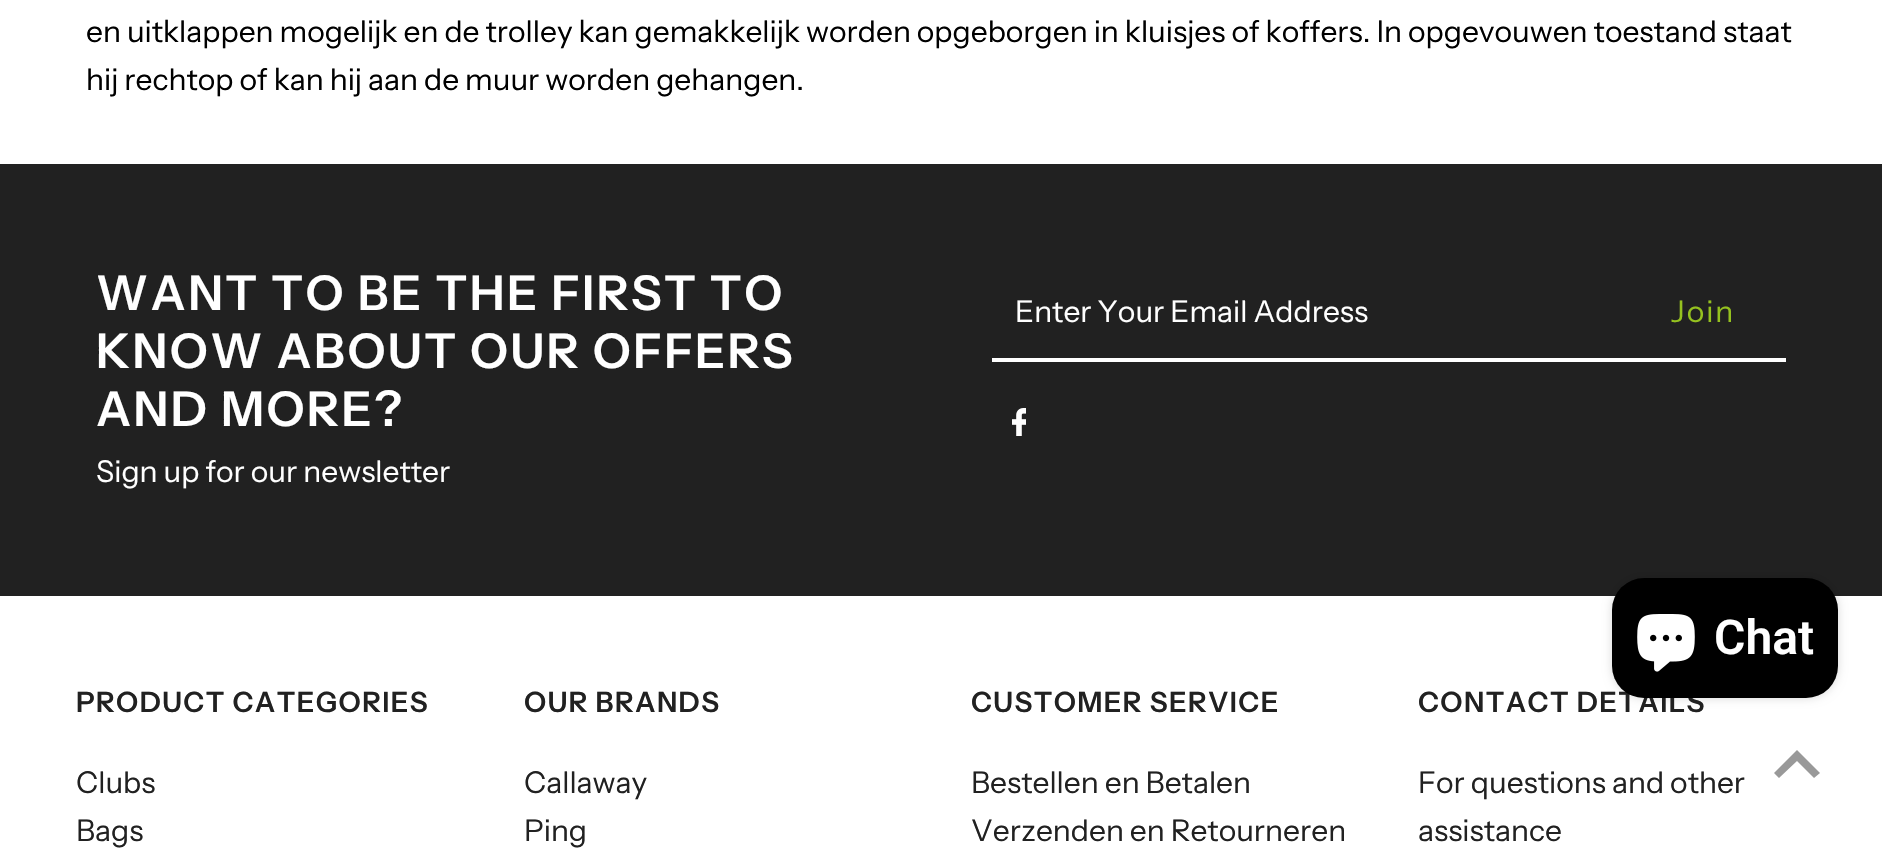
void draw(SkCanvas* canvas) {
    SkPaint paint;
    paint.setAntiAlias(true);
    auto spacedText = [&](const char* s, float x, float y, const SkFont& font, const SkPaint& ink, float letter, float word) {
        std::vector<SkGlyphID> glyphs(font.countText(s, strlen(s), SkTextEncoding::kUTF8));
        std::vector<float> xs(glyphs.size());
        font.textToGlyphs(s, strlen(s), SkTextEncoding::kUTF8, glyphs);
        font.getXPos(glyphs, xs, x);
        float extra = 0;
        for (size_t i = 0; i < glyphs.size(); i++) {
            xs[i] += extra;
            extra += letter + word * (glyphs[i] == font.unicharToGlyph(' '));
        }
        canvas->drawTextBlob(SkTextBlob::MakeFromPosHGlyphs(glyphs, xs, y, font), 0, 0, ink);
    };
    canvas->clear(0xFFFFFFFF);
    SkFont font1(fontMgr->matchFamilyStyle("Instrument Sans", SkFontStyle::Normal()), 30);
    font1.setSubpixel(true);
    paint.setColor(0xFF000000);
    canvas->drawString("en uitklappen mogelijk en de trolley kan gemakkelijk worden opgeborgen in kluisjes of koffers. In opgevouwen toestand staat", 86, 42, font1, paint);
    canvas->drawString("hij rechtop of kan hij aan de muur worden gehangen.", 86, 90, font1, paint);
    paint.setColor(0xFF212121);
    canvas->drawRect(SkRect::MakeXYWH(0, 164, 1882, 432), paint);
    SkFont font2(fontMgr->matchFamilyStyle("Instrument Sans", SkFontStyle(600, SkFontStyle::kNormal_Width, SkFontStyle::kUpright_Slant)), 48);
    font2.setSubpixel(true);
    paint.setColor(0xFFFFFFFF);
    spacedText("WANT TO BE THE FIRST TO", 96, 310, font2, paint, 2.4f, 0);
    spacedText("KNOW ABOUT OUR OFFERS", 96, 368, font2, paint, 2.4f, 0);
    spacedText("AND MORE?", 96, 426, font2, paint, 2.4f, 0);
    canvas->drawString("Sign up for our newsletter", 96, 482, font1, paint);
    canvas->drawRect(SkRect::MakeXYWH(992, 358, 794, 4), paint);
    canvas->drawString("Enter Your Email Address", 1015, 322, font1, paint);
    paint.setColor(0xFF95C11F);
    spacedText("Join", 1671, 322, font1, paint, 2, 0);
    canvas->drawImageRect(SkImages::DeferredFromEncodedData(SkData::MakeFromFileName("img1.png")), SkRect::MakeXYWH(1012, 408, 14, 28), SkSamplingOptions());
    paint.setColor(0x26000000);
    paint.setMaskFilter(SkMaskFilter::MakeBlur(kNormal_SkBlurStyle, 5));
    canvas->drawRoundRect(SkRect::MakeXYWH(1612, 578, 226, 120), 32, 32, paint);
    paint.setMaskFilter(nullptr);
    SkFont font3(fontMgr->matchFamilyStyle("Instrument Sans", SkFontStyle(600, SkFontStyle::kNormal_Width, SkFontStyle::kUpright_Slant)), 28);
    font3.setSubpixel(true);
    paint.setColor(0xFF212121);
    spacedText("CONTACT DETAILS", 1418, 712, font3, paint, 1.4f, 0);
    paint.setColor(0xFF000000);
    canvas->drawRoundRect(SkRect::MakeXYWH(1612, 578, 226, 120), 32, 32, paint);
    canvas->drawImageRect(SkImages::DeferredFromEncodedData(SkData::MakeFromFileName("img2.png")), SkRect::MakeXYWH(1637, 614, 58, 58), SkSamplingOptions());
    SkFont font4(fontMgr->matchFamilyStyle("Roboto", SkFontStyle(600, SkFontStyle::kNormal_Width, SkFontStyle::kUpright_Slant)), 48);
    font4.setSubpixel(true);
    paint.setColor(0xFFFFFFFF);
    canvas->drawString("Chat", 1714, 654, font4, paint);
    paint.setColor(0xFF212121);
    spacedText("PRODUCT CATEGORIES", 76, 712, font3, paint, 1.4f, 0);
    canvas->drawString("Clubs", 76, 793, font1, paint);
    canvas->drawString("Bags", 76, 841, font1, paint);
    spacedText("OUR BRANDS", 524, 712, font3, paint, 1.4f, 0);
    canvas->drawString("Callaway", 524, 793, font1, paint);
    canvas->drawString("Ping", 524, 841, font1, paint);
    spacedText("CUSTOMER SERVICE", 971, 712, font3, paint, 1.4f, 0);
    canvas->drawString("Bestellen en Betalen", 971, 793, font1, paint);
    canvas->drawString("Verzenden en Retourneren", 971, 841, font1, paint);
    canvas->drawString("For questions and other", 1418, 793, font1, paint);
    canvas->drawString("assistance", 1418, 841, font1, paint);
    paint.setColor(0xFF999999);
    canvas->drawPath(SkPathBuilder().moveTo(1797, 750).lineTo(1774, 773).lineTo(1779, 778).lineTo(1797, 761).lineTo(1814, 778).lineTo(1820, 773).close().detach(), paint);
}
